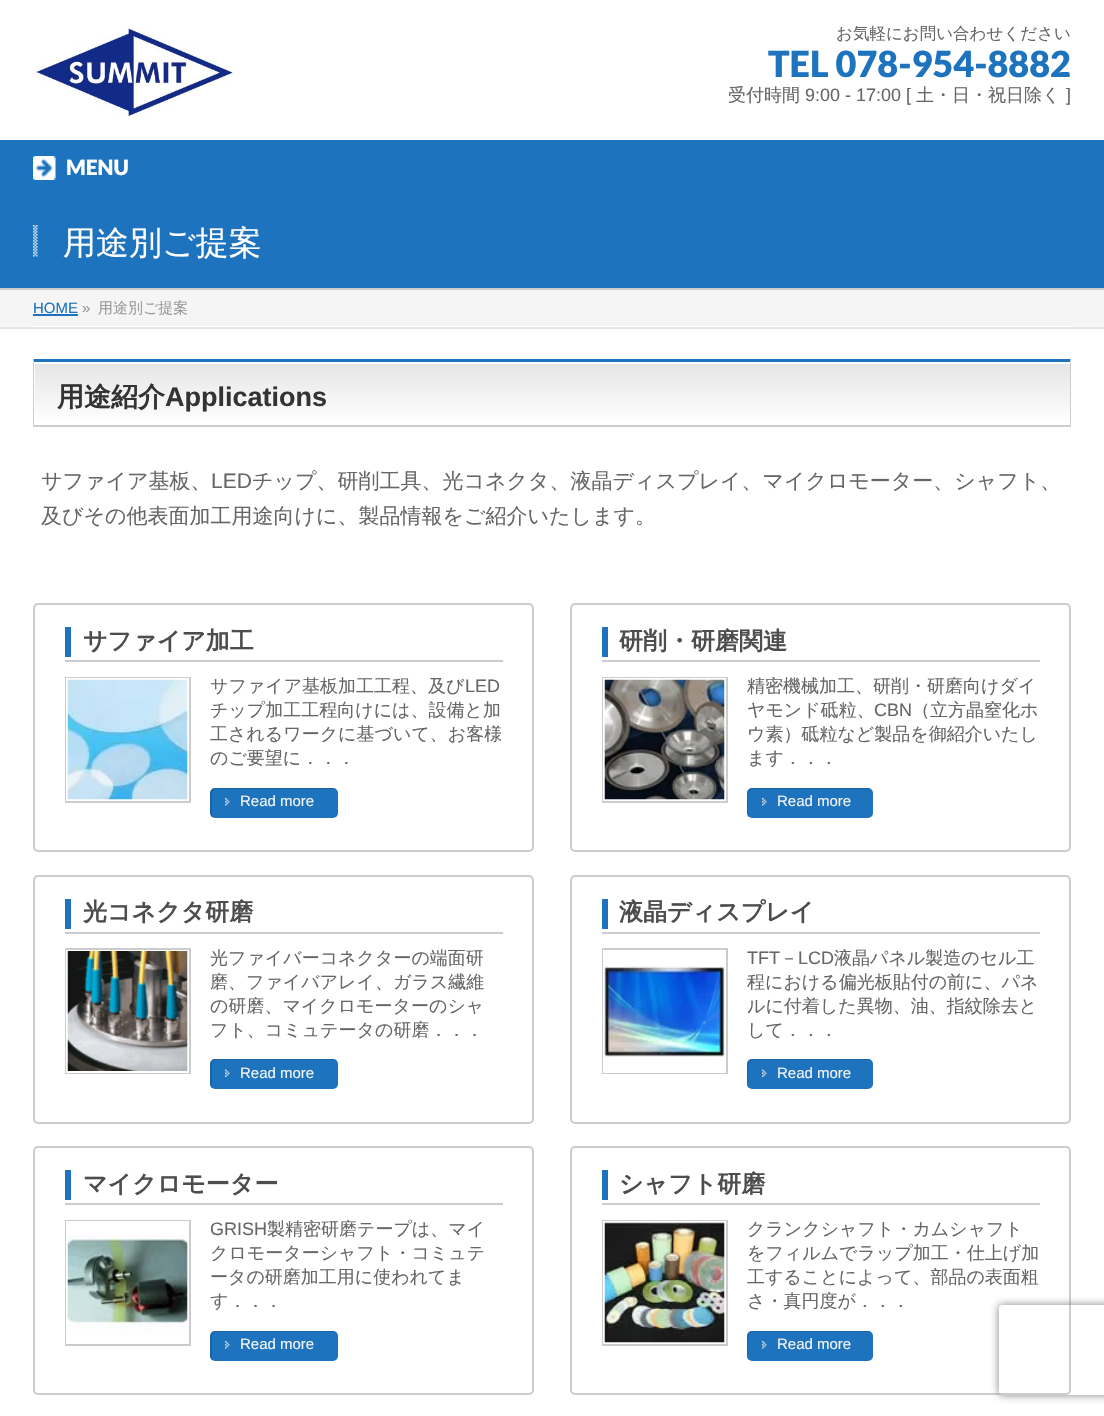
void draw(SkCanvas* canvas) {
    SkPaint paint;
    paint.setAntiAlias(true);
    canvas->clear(0xFFFFFFFF);
    canvas->drawImageRect(SkImages::DeferredFromEncodedData(SkData::MakeFromFileName("img1.png")), SkRect::MakeXYWH(33, 27, 202, 89), SkSamplingOptions());
    SkFont font1(fontMgr->matchFamilyStyle("WenQuanYi Zen Hei", SkFontStyle(500, SkFontStyle::kNormal_Width, SkFontStyle::kUpright_Slant)), 16.5f);
    font1.setSubpixel(true);
    paint.setColor(0xFF666666);
    canvas->drawString("お気軽にお問い合わせください", 836, 39, font1, paint);
    SkFont font2(fontMgr->matchFamilyStyle("Lato", SkFontStyle(900, SkFontStyle::kNormal_Width, SkFontStyle::kUpright_Slant)), 36);
    font2.setSubpixel(true);
    paint.setColor(0xFF1E73BE);
    canvas->drawString("TEL 078-954-8882", 768, 77, font2, paint);
    SkFont font3(fontMgr->matchFamilyStyle("WenQuanYi Zen Hei", SkFontStyle(500, SkFontStyle::kNormal_Width, SkFontStyle::kUpright_Slant)), 18);
    font3.setSubpixel(true);
    paint.setColor(0xFF666666);
    canvas->drawString("受付時間", 728, 101, font3, paint);
    SkFont font4(fontMgr->matchFamilyStyle("Liberation Sans", SkFontStyle::Normal()), 18);
    font4.setSubpixel(true);
    canvas->drawString("9:00 - 17:00 [", 805, 101, font4, paint);
    canvas->drawString("土・日・祝日除く", 916, 101, font3, paint);
    canvas->drawString("]", 1066, 101, font4, paint);
    paint.setColor(0xFF1E73BE);
    canvas->drawRect(SkRect::MakeXYWH(0, 140, 1104, 54), paint);
    canvas->drawImageRect(SkImages::DeferredFromEncodedData(SkData::MakeFromFileName("img2.png")), SkRect::MakeXYWH(33, 156, 23, 24), SkSamplingOptions());
    SkFont font5(fontMgr->matchFamilyStyle("Lato", SkFontStyle(900, SkFontStyle::kNormal_Width, SkFontStyle::kUpright_Slant)), 21);
    font5.setSubpixel(true);
    paint.setColor(0xFFFFFFFF);
    canvas->drawString("MENU", 66, 175, font5, paint);
    paint.setColor(0xFF1E73BE);
    canvas->drawRect(SkRect::MakeXYWH(0, 194, 1104, 94), paint);
    paint.setColor(0xFFCCCCCC);
    canvas->drawRect(SkRect::MakeXYWH(0, 288, 1104, 2), paint);
    canvas->drawImageRect(SkImages::DeferredFromEncodedData(SkData::MakeFromFileName("img3.png")), SkRect::MakeXYWH(33, 225, 5, 32), SkSamplingOptions());
    SkFont font6(fontMgr->matchFamilyStyle("WenQuanYi Zen Hei", SkFontStyle(500, SkFontStyle::kNormal_Width, SkFontStyle::kUpright_Slant)), 33);
    font6.setSubpixel(true);
    paint.setColor(0xFFFFFFFF);
    canvas->drawString("用途別ご提案", 63, 254, font6, paint);
    paint.setColor(0xFFF5F5F5);
    canvas->drawRect(SkRect::MakeXYWH(0, 290, 1104, 37), paint);
    paint.setColor(0xFFE5E5E5);
    canvas->drawRect(SkRect::MakeXYWH(0, 327, 1104, 2), paint);
    paint.setColor(0xFFFFFFFF);
    canvas->drawRect(SkRect::MakeXYWH(33, 326, 1038, 1), paint);
    SkFont font7(fontMgr->matchFamilyStyle("Liberation Sans", SkFontStyle::Normal()), 15);
    font7.setSubpixel(true);
    paint.setColor(0xFF1E73BE);
    canvas->drawString("HOME", 33, 313, font7, paint);
    canvas->drawRect(SkRect::MakeXYWH(33, 314, 45, 2), paint);
    paint.setColor(0xFF999999);
    canvas->drawString("»", 82, 313, font7, paint);
    SkFont font8(fontMgr->matchFamilyStyle("WenQuanYi Zen Hei", SkFontStyle(500, SkFontStyle::kNormal_Width, SkFontStyle::kUpright_Slant)), 15);
    font8.setSubpixel(true);
    canvas->drawString("用途別ご提案", 98, 313, font8, paint);
    {
        const SkColor colors[] = {0xFFE5E5E5, 0xFFFFFFFF};
        const float stops[] = {0, 1};
        const SkPoint ends[] = {{35, 362}, {35, 425}};
        paint.setShader(SkGradientShader::MakeLinear(ends, colors, stops, 2, SkTileMode::kClamp));
        paint.setAlpha(255);
    }
    canvas->drawRect(SkRect::MakeXYWH(35, 364, 1035, 55), paint);
    canvas->save();
    canvas->clipRect(SkRect::MakeXYWH(33, 359, 1038, 207));
    paint.setShader(nullptr);
    paint.setColor(0xFF1E73BE);
    canvas->drawPath(SkPathBuilder().moveTo(33, 358).lineTo(1071, 358).lineTo(1070, 362).lineTo(34, 362).close().detach(), paint);
    canvas->restore();
    paint.setColor(0xFFCCCCCC);
    canvas->drawPath(SkPathBuilder().moveTo(1071, 358).lineTo(1071, 426).lineTo(1070, 424).lineTo(1070, 362).close().detach(), paint);
    canvas->drawRect(SkRect::MakeXYWH(33, 425, 1038, 2), paint);
    canvas->drawPath(SkPathBuilder().moveTo(33, 426).lineTo(33, 358).lineTo(34, 362).lineTo(34, 424).close().detach(), paint);
    SkFont font9(fontMgr->matchFamilyStyle("WenQuanYi Zen Hei", SkFontStyle::Bold()), 27);
    font9.setSubpixel(true);
    paint.setColor(0xFF333333);
    canvas->drawString("用途紹介", 57, 406, font9, paint);
    SkFont font10(fontMgr->matchFamilyStyle("Liberation Sans", SkFontStyle::Bold()), 27);
    font10.setSubpixel(true);
    canvas->drawString("Applications", 165, 406, font10, paint);
    SkFont font11(fontMgr->matchFamilyStyle("WenQuanYi Zen Hei", SkFontStyle(500, SkFontStyle::kNormal_Width, SkFontStyle::kUpright_Slant)), 21);
    font11.setSubpixel(true);
    paint.setColor(0xFF666666);
    canvas->drawString("サファイア基板、", 41, 488, font11, paint);
    SkFont font12(fontMgr->matchFamilyStyle("Liberation Sans", SkFontStyle::Normal()), 21);
    font12.setSubpixel(true);
    canvas->drawString("LED", 211, 488, font12, paint);
    canvas->drawString("チップ、研削工具、光コネクタ、液晶ディスプレイ、マイクロモーター、シャフト、", 252, 488, font11, paint);
    canvas->drawString("及びその他表面加工用途向けに、製品情報をご紹介いたします。", 41, 523, font11, paint);
    paint.setStyle(SkPaint::kStroke_Style);
    paint.setStrokeWidth(2);
    paint.setColor(0xFFCCCCCC);
    canvas->drawRoundRect(SkRect::MakeXYWH(34, 604, 499, 247), 4, 4, paint);
    paint.setStyle(SkPaint::kFill_Style);
    canvas->drawRect(SkRect::MakeXYWH(65, 660, 438, 2), paint);
    paint.setColor(0xFF1E73BE);
    canvas->drawRect(SkRect::MakeXYWH(65, 627, 6, 30), paint);
    SkFont font13(fontMgr->matchFamilyStyle("WenQuanYi Zen Hei", SkFontStyle::Bold()), 24);
    font13.setSubpixel(true);
    paint.setColor(0xFF4D4D4D);
    canvas->drawString("サファイア加工", 83, 649, font13, paint);
    paint.setStyle(SkPaint::kStroke_Style);
    paint.setColor(0xFFCCCCCC);
    canvas->drawRect(SkRect::MakeXYWH(66, 678, 124, 124), paint);
    paint.setColor(0xFFFFFFFF);
    canvas->drawRect(SkRect::MakeXYWH(67, 679, 121, 121), paint);
    canvas->drawImageRect(SkImages::DeferredFromEncodedData(SkData::MakeFromFileName("img4.png")), SkRect::MakeXYWH(67, 679, 121, 121), SkSamplingOptions());
    paint.setStyle(SkPaint::kFill_Style);
    paint.setColor(0xFF666666);
    canvas->drawString("サファイア基板加工工程、及び", 210, 692, font3, paint);
    canvas->drawString("LED", 465, 692, font4, paint);
    canvas->drawString("チップ加工工程向けには、設備と加", 210, 716, font3, paint);
    canvas->drawString("工されるワークに基づいて、お客様", 210, 740, font3, paint);
    canvas->drawString("のご要望に．．．", 210, 764, font3, paint);
    paint.setColor(0xFF1E73BE);
    canvas->drawRoundRect(SkRect::MakeXYWH(210, 788, 128, 30), 5, 5, paint);
    canvas->drawImageRect(SkImages::DeferredFromEncodedData(SkData::MakeFromFileName("img5.png")), SkRect::MakeXYWH(225, 798, 5, 8), SkSamplingOptions());
    paint.setColor(0x26000000);
    canvas->drawPath(SkPathBuilder().moveTo(216, 789).lineTo(334, 789).lineTo(337, 790).lineTo(334, 788).lineTo(215, 788).cubicTo(210, 788, 210, 793, 210, 796).lineTo(210, 806).cubicTo(210, 810, 209, 816, 213, 818).cubicTo(211, 815, 212, 807, 212, 804).cubicTo(212, 801, 210, 789, 216, 789).close().detach(), paint);
    paint.setColor(0xFFF5F5F5);
    canvas->drawString("Read more", 240, 806, font7, paint);
    paint.setStyle(SkPaint::kStroke_Style);
    paint.setColor(0xFFCCCCCC);
    canvas->drawRoundRect(SkRect::MakeXYWH(571, 604, 499, 247), 4, 4, paint);
    paint.setStyle(SkPaint::kFill_Style);
    canvas->drawRect(SkRect::MakeXYWH(602, 660, 438, 2), paint);
    paint.setColor(0xFF1E73BE);
    canvas->drawRect(SkRect::MakeXYWH(602, 627, 6, 30), paint);
    paint.setColor(0xFF4D4D4D);
    canvas->drawString("研削・研磨関連", 619, 649, font13, paint);
    paint.setStyle(SkPaint::kStroke_Style);
    paint.setColor(0xFFCCCCCC);
    canvas->drawRect(SkRect::MakeXYWH(603, 678, 124, 124), paint);
    paint.setColor(0xFFFFFFFF);
    canvas->drawRect(SkRect::MakeXYWH(604, 679, 121, 121), paint);
    canvas->drawImageRect(SkImages::DeferredFromEncodedData(SkData::MakeFromFileName("img6.png")), SkRect::MakeXYWH(604, 679, 121, 121), SkSamplingOptions());
    paint.setStyle(SkPaint::kFill_Style);
    paint.setColor(0xFF666666);
    canvas->drawString("精密機械加工、研削・研磨向けダイ", 747, 692, font3, paint);
    canvas->drawString("ヤモンド砥粒、", 747, 716, font3, paint);
    canvas->drawString("CBN", 874, 716, font4, paint);
    canvas->drawString("（立方晶窒化ホ", 912, 716, font3, paint);
    canvas->drawString("ウ素）砥粒など製品を御紹介いたし", 747, 740, font3, paint);
    canvas->drawString("ます．．．", 747, 764, font3, paint);
    paint.setColor(0xFF1E73BE);
    canvas->drawRoundRect(SkRect::MakeXYWH(747, 788, 126, 30), 5, 5, paint);
    canvas->drawImageRect(SkImages::DeferredFromEncodedData(SkData::MakeFromFileName("img5.png")), SkRect::MakeXYWH(762, 798, 5, 8), SkSamplingOptions());
    paint.setColor(0x26000000);
    canvas->drawPath(SkPathBuilder().moveTo(753, 789).lineTo(871, 789).lineTo(868, 788).lineTo(752, 788).cubicTo(747, 788, 747, 793, 747, 796).lineTo(747, 806).cubicTo(747, 810, 746, 815, 749, 817).cubicTo(747, 814, 748, 807, 748, 804).cubicTo(748, 800, 746, 789, 753, 789).close().detach(), paint);
    paint.setColor(0xFFF5F5F5);
    canvas->drawString("Read more", 777, 806, font7, paint);
    paint.setStyle(SkPaint::kStroke_Style);
    paint.setColor(0xFFCCCCCC);
    canvas->drawRoundRect(SkRect::MakeXYWH(34, 876, 499, 247), 4, 4, paint);
    paint.setStyle(SkPaint::kFill_Style);
    canvas->drawRect(SkRect::MakeXYWH(65, 932, 438, 2), paint);
    paint.setColor(0xFF1E73BE);
    canvas->drawRect(SkRect::MakeXYWH(65, 899, 6, 30), paint);
    paint.setColor(0xFF4D4D4D);
    canvas->drawString("光コネクタ研磨", 83, 920, font13, paint);
    paint.setStyle(SkPaint::kStroke_Style);
    paint.setColor(0xFFCCCCCC);
    canvas->drawRect(SkRect::MakeXYWH(66, 949, 124, 124), paint);
    paint.setColor(0xFFFFFFFF);
    canvas->drawRect(SkRect::MakeXYWH(67, 951, 121, 121), paint);
    canvas->drawImageRect(SkImages::DeferredFromEncodedData(SkData::MakeFromFileName("img7.png")), SkRect::MakeXYWH(67, 951, 121, 120), SkSamplingOptions());
    paint.setStyle(SkPaint::kFill_Style);
    paint.setColor(0xFF666666);
    canvas->drawString("光ファイバーコネクターの端面研", 210, 964, font3, paint);
    canvas->drawString("磨、ファイバアレイ、ガラス繊維", 210, 988, font3, paint);
    canvas->drawString("の研磨、マイクロモーターのシャ", 210, 1012, font3, paint);
    canvas->drawString("フト、コミュテータの研磨．．．", 210, 1036, font3, paint);
    paint.setColor(0xFF1E73BE);
    canvas->drawRoundRect(SkRect::MakeXYWH(210, 1059, 128, 30), 5, 5, paint);
    canvas->drawImageRect(SkImages::DeferredFromEncodedData(SkData::MakeFromFileName("img8.png")), SkRect::MakeXYWH(225, 1069, 5, 8), SkSamplingOptions());
    paint.setColor(0x26000000);
    canvas->drawPath(SkPathBuilder().moveTo(216, 1060).lineTo(334, 1060).lineTo(337, 1061).cubicTo(336, 1060, 335, 1059, 333, 1059).lineTo(215, 1059).cubicTo(212, 1059, 210, 1061, 210, 1064).lineTo(210, 1084).cubicTo(210, 1086, 211, 1088, 213, 1089).cubicTo(211, 1086, 212, 1079, 212, 1076).cubicTo(212, 1073, 210, 1060, 216, 1060).close().detach(), paint);
    paint.setColor(0xFFF5F5F5);
    canvas->drawString("Read more", 240, 1078, font7, paint);
    paint.setStyle(SkPaint::kStroke_Style);
    paint.setColor(0xFFCCCCCC);
    canvas->drawRoundRect(SkRect::MakeXYWH(571, 876, 499, 247), 4, 4, paint);
    paint.setStyle(SkPaint::kFill_Style);
    canvas->drawRect(SkRect::MakeXYWH(602, 932, 438, 2), paint);
    paint.setColor(0xFF1E73BE);
    canvas->drawRect(SkRect::MakeXYWH(602, 899, 6, 30), paint);
    paint.setColor(0xFF4D4D4D);
    canvas->drawString("液晶ディスプレイ", 619, 920, font13, paint);
    paint.setStyle(SkPaint::kStroke_Style);
    paint.setColor(0xFFCCCCCC);
    canvas->drawRect(SkRect::MakeXYWH(603, 949, 124, 124), paint);
    paint.setColor(0xFFFFFFFF);
    canvas->drawRect(SkRect::MakeXYWH(604, 951, 121, 121), paint);
    canvas->drawImageRect(SkImages::DeferredFromEncodedData(SkData::MakeFromFileName("img9.png")), SkRect::MakeXYWH(604, 966, 121, 91), SkSamplingOptions());
    paint.setStyle(SkPaint::kFill_Style);
    paint.setColor(0xFF666666);
    canvas->drawString("TFT", 747, 964, font4, paint);
    canvas->drawString("－", 780, 964, font3, paint);
    canvas->drawString("LCD", 798, 964, font4, paint);
    canvas->drawString("液晶パネル製造のセル工", 834, 964, font3, paint);
    canvas->drawString("程における偏光板貼付の前に、パネ", 747, 988, font3, paint);
    canvas->drawString("ルに付着した異物、油、指紋除去と", 747, 1012, font3, paint);
    canvas->drawString("して．．．", 747, 1036, font3, paint);
    paint.setColor(0xFF1E73BE);
    canvas->drawRoundRect(SkRect::MakeXYWH(747, 1059, 126, 30), 5, 5, paint);
    canvas->drawImageRect(SkImages::DeferredFromEncodedData(SkData::MakeFromFileName("img8.png")), SkRect::MakeXYWH(762, 1069, 5, 8), SkSamplingOptions());
    paint.setColor(0x26000000);
    canvas->drawPath(SkPathBuilder().moveTo(753, 1060).lineTo(870, 1060).lineTo(872, 1061).cubicTo(871, 1060, 870, 1059, 868, 1059).lineTo(752, 1059).cubicTo(749, 1059, 747, 1061, 747, 1064).lineTo(747, 1084).cubicTo(747, 1086, 748, 1087, 749, 1088).cubicTo(747, 1086, 748, 1078, 748, 1076).cubicTo(748, 1072, 746, 1060, 753, 1060).close().detach(), paint);
    paint.setColor(0xFFF5F5F5);
    canvas->drawString("Read more", 777, 1078, font7, paint);
    paint.setStyle(SkPaint::kStroke_Style);
    paint.setColor(0xFFCCCCCC);
    canvas->drawRoundRect(SkRect::MakeXYWH(34, 1147, 499, 247), 4, 4, paint);
    paint.setStyle(SkPaint::kFill_Style);
    canvas->drawRect(SkRect::MakeXYWH(65, 1203, 438, 2), paint);
    paint.setColor(0xFF1E73BE);
    canvas->drawRect(SkRect::MakeXYWH(65, 1170, 6, 30), paint);
    paint.setColor(0xFF4D4D4D);
    canvas->drawString("マイクロモーター", 83, 1192, font13, paint);
    paint.setStyle(SkPaint::kStroke_Style);
    paint.setColor(0xFFCCCCCC);
    canvas->drawRect(SkRect::MakeXYWH(66, 1221, 124, 124), paint);
    paint.setColor(0xFFFFFFFF);
    canvas->drawRect(SkRect::MakeXYWH(67, 1222, 121, 121), paint);
    canvas->drawImageRect(SkImages::DeferredFromEncodedData(SkData::MakeFromFileName("img10.png")), SkRect::MakeXYWH(67, 1235, 121, 101), SkSamplingOptions());
    paint.setStyle(SkPaint::kFill_Style);
    paint.setColor(0xFF666666);
    canvas->drawString("GRISH", 210, 1235, font4, paint);
    canvas->drawString("製精密研磨テープは、マイ", 267, 1235, font3, paint);
    canvas->drawString("クロモーターシャフト・コミュテ", 210, 1259, font3, paint);
    canvas->drawString("ータの研磨加工用に使われてま", 210, 1283, font3, paint);
    canvas->drawString("す．．．", 210, 1307, font3, paint);
    paint.setColor(0xFF1E73BE);
    canvas->drawRoundRect(SkRect::MakeXYWH(210, 1331, 128, 30), 5, 5, paint);
    canvas->drawImageRect(SkImages::DeferredFromEncodedData(SkData::MakeFromFileName("img5.png")), SkRect::MakeXYWH(225, 1341, 5, 8), SkSamplingOptions());
    paint.setColor(0x26000000);
    canvas->drawPath(SkPathBuilder().moveTo(216, 1332).lineTo(334, 1332).lineTo(337, 1333).lineTo(334, 1331).lineTo(215, 1331).cubicTo(210, 1331, 210, 1336, 210, 1339).lineTo(210, 1349).cubicTo(210, 1353, 209, 1359, 213, 1361).cubicTo(211, 1358, 212, 1350, 212, 1347).cubicTo(212, 1344, 210, 1332, 216, 1332).close().detach(), paint);
    paint.setColor(0xFFF5F5F5);
    canvas->drawString("Read more", 240, 1349, font7, paint);
    paint.setStyle(SkPaint::kStroke_Style);
    paint.setColor(0xFFCCCCCC);
    canvas->drawRoundRect(SkRect::MakeXYWH(571, 1147, 499, 247), 4, 4, paint);
    paint.setStyle(SkPaint::kFill_Style);
    canvas->drawRect(SkRect::MakeXYWH(602, 1203, 438, 2), paint);
    paint.setColor(0xFF1E73BE);
    canvas->drawRect(SkRect::MakeXYWH(602, 1170, 6, 30), paint);
    paint.setColor(0xFF4D4D4D);
    canvas->drawString("シャフト研磨", 619, 1192, font13, paint);
    paint.setStyle(SkPaint::kStroke_Style);
    paint.setColor(0xFFCCCCCC);
    canvas->drawRect(SkRect::MakeXYWH(603, 1221, 124, 124), paint);
    paint.setColor(0xFFFFFFFF);
    canvas->drawRect(SkRect::MakeXYWH(604, 1222, 121, 121), paint);
    canvas->drawImageRect(SkImages::DeferredFromEncodedData(SkData::MakeFromFileName("img11.png")), SkRect::MakeXYWH(604, 1222, 121, 121), SkSamplingOptions());
    paint.setStyle(SkPaint::kFill_Style);
    paint.setColor(0xFF666666);
    canvas->drawString("クランクシャフト・カムシャフト", 747, 1235, font3, paint);
    canvas->drawString("をフィルムでラップ加工・仕上げ加", 747, 1259, font3, paint);
    canvas->drawString("工することによって、部品の表面粗", 747, 1283, font3, paint);
    canvas->drawString("さ・真円度が．．．", 747, 1307, font3, paint);
    paint.setColor(0xFF1E73BE);
    canvas->drawRoundRect(SkRect::MakeXYWH(747, 1331, 126, 30), 5, 5, paint);
    canvas->drawImageRect(SkImages::DeferredFromEncodedData(SkData::MakeFromFileName("img5.png")), SkRect::MakeXYWH(762, 1341, 5, 8), SkSamplingOptions());
    paint.setColor(0x26000000);
    canvas->drawPath(SkPathBuilder().moveTo(753, 1332).lineTo(871, 1332).cubicTo(870, 1331, 869, 1331, 868, 1331).lineTo(752, 1331).cubicTo(749, 1331, 747, 1333, 747, 1336).lineTo(747, 1356).cubicTo(747, 1358, 748, 1359, 749, 1360).cubicTo(747, 1358, 748, 1350, 748, 1347).cubicTo(748, 1343, 746, 1332, 753, 1332).close().detach(), paint);
    paint.setColor(0xFFF5F5F5);
    canvas->drawString("Read more", 777, 1349, font7, paint);
    canvas->save();
    canvas->clipPath(SkPathBuilder(SkPathFillType::kEvenOdd).moveTo(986, 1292).lineTo(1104, 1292).lineTo(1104, 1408).lineTo(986, 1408).close().moveTo(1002, 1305).lineTo(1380, 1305).cubicTo(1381.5f, 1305, 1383, 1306.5f, 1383, 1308).lineTo(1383, 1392).cubicTo(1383, 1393.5f, 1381.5f, 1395, 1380, 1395).lineTo(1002, 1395).cubicTo(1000.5f, 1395, 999, 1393.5f, 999, 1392).lineTo(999, 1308).cubicTo(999, 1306.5f, 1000.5f, 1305, 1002, 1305).close().detach(), true);
    paint.setColor(0xFF808080);
    paint.setMaskFilter(SkMaskFilter::MakeBlur(kNormal_SkBlurStyle, 4));
    canvas->drawRoundRect(SkRect::MakeXYWH(999, 1305, 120, 90), 3, 3, paint);
    paint.setMaskFilter(nullptr);
    canvas->restore();
}
